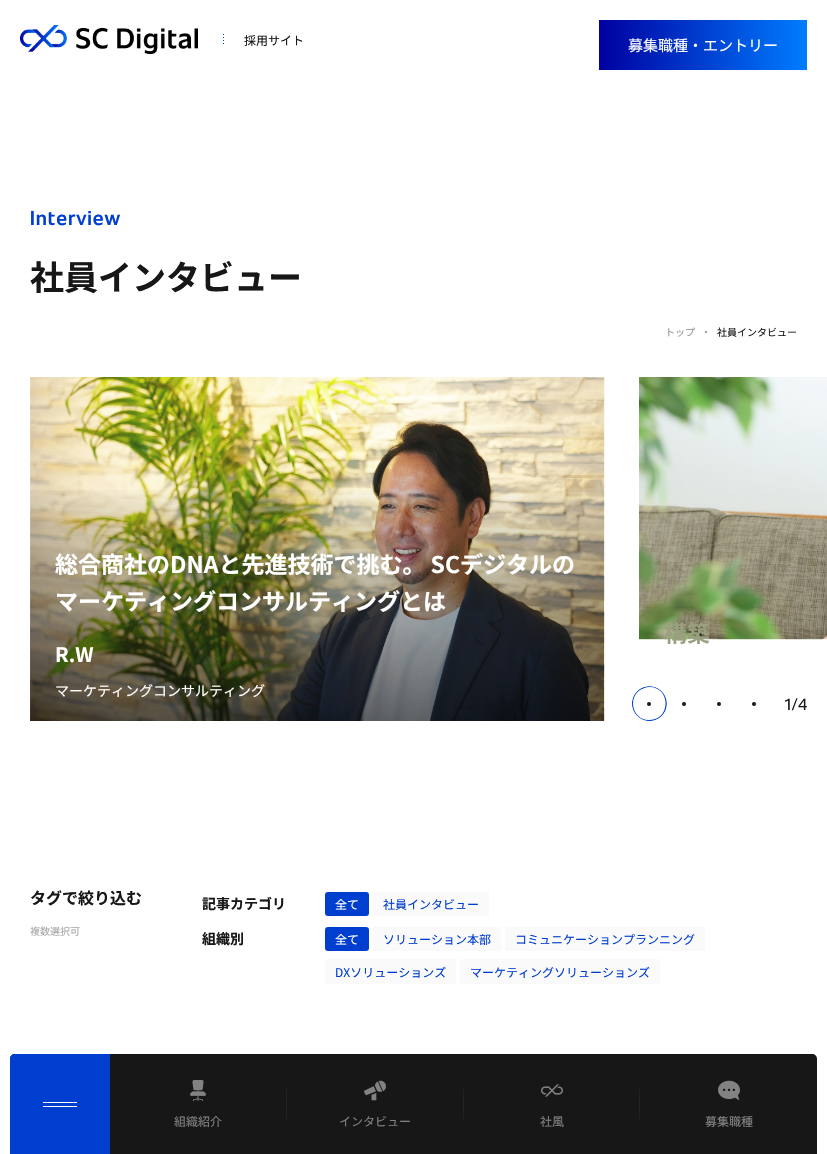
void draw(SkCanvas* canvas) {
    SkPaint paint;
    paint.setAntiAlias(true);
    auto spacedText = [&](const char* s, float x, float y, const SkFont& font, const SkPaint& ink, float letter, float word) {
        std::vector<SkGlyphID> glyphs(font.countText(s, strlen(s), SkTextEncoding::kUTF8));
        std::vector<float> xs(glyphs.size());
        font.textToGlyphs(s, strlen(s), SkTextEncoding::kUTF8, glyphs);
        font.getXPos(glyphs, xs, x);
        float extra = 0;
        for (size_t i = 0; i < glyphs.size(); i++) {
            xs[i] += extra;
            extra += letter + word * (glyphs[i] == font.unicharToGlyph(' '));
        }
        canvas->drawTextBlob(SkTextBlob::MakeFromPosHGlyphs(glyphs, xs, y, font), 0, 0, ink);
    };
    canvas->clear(0xFFFFFFFF);
    canvas->drawImageRect(SkImages::DeferredFromEncodedData(SkData::MakeFromFileName("img1.png")), SkRect::MakeXYWH(20, 25, 178, 29), SkSamplingOptions());
    canvas->drawImageRect(SkImages::DeferredFromEncodedData(SkData::MakeFromFileName("img2.png")), SkRect::MakeXYWH(223, 34, 1, 10), SkSamplingOptions());
    SkFont font1(fontMgr->matchFamilyStyle("Noto Sans JP", SkFontStyle::Normal()), 12);
    font1.setSubpixel(true);
    paint.setColor(0xFF171717);
    canvas->drawString("採用サイト", 244, 45, font1, paint);
    {
        const SkColor colors[] = {0xFF0000A0, 0xFF007DFF};
        const float stops[] = {0, 1};
        const SkPoint ends[] = {{599, 45}, {807, 45}};
        paint.setShader(SkGradientShader::MakeLinear(ends, colors, stops, 2, SkTileMode::kClamp));
        paint.setAlpha(255);
    }
    canvas->drawRect(SkRect::MakeXYWH(599, 20, 208, 50), paint);
    SkFont font2(fontMgr->matchFamilyStyle("Noto Sans JP", SkFontStyle::Normal()), 15);
    font2.setSubpixel(true);
    paint.setShader(nullptr);
    paint.setColor(0xFFFFFFFF);
    canvas->drawString("募集職種・エントリー", 628, 51, font2, paint);
    SkFont font3(fontMgr->matchFamilyStyle("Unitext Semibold", SkFontStyle(600, SkFontStyle::kNormal_Width, SkFontStyle::kUpright_Slant)), 20);
    font3.setSubpixel(true);
    paint.setColor(0xFF003ECF);
    spacedText("Interview", 30, 225, font3, paint, 1, 0);
    SkFont font4(fontMgr->matchFamilyStyle("Noto Sans JP", SkFontStyle::Bold()), 34);
    font4.setSubpixel(true);
    paint.setColor(0xFF171717);
    canvas->drawString("社員インタビュー", 30, 290, font4, paint);
    SkFont font5(fontMgr->matchFamilyStyle("Noto Sans JP", SkFontStyle::Normal()), 10);
    font5.setSubpixel(true);
    paint.setColor(0xFF909090);
    canvas->drawString("トップ", 665, 336, font5, paint);
    paint.setColor(0xFF808080);
    canvas->drawCircle(706, 332, 1, paint);
    paint.setColor(0xFF171717);
    canvas->drawString("社員インタビュー", 717, 336, font5, paint);
    canvas->drawImageRect(SkImages::DeferredFromEncodedData(SkData::MakeFromFileName("img3.png")), SkRect::MakeXYWH(30, 377, 575, 344), SkSamplingOptions());
    {
        const SkColor colors[] = {0x99000000, 0x00000000};
        const float stops[] = {0, 1};
        const SkPoint ends[] = {{317, 722}, {317, 481}};
        paint.setShader(SkGradientShader::MakeLinear(ends, colors, stops, 2, SkTileMode::kClamp));
        paint.setAlpha(255);
    }
    canvas->drawRect(SkRect::MakeXYWH(30, 490, 574, 231), paint);
    SkFont font6(fontMgr->matchFamilyStyle("Noto Sans JP", SkFontStyle::Bold()), 23);
    font6.setSubpixel(true);
    paint.setShader(nullptr);
    paint.setColor(0xFFFFFFFF);
    canvas->drawString("総合商社のDNAと先進技術で挑む。 SCデジタルの", 55, 573, font6, paint);
    canvas->drawString("マーケティングコンサルティングとは", 55, 610, font6, paint);
    SkFont font7(fontMgr->matchFamilyStyle("Noto Sans JP", SkFontStyle::Bold()), 20);
    font7.setSubpixel(true);
    canvas->drawString("R.W", 55, 662, font7, paint);
    SkFont font8(fontMgr->matchFamilyStyle("Noto Sans JP", SkFontStyle::Normal()), 14);
    font8.setSubpixel(true);
    canvas->drawString("マーケティングコンサルティング", 55, 696, font8, paint);
    canvas->drawImageRect(SkImages::DeferredFromEncodedData(SkData::MakeFromFileName("img4.png")), SkRect::MakeXYWH(639, 377, 188, 263), SkSamplingOptions());
    paint.setColor(0xFF9AA080);
    canvas->drawString("構築", 664, 642, font6, paint);
    canvas->drawImageRect(SkImages::DeferredFromEncodedData(SkData::MakeFromFileName("img5.png")), SkRect::MakeXYWH(632, 686, 35, 35), SkSamplingOptions());
    paint.setColor(0xFFFFFFFF);
    canvas->drawPath(SkPathBuilder().moveTo(649.5f, 687).cubicTo(670.5f, 687, 671.5f, 719.5f, 649.5f, 720).cubicTo(633.5f, 721, 627, 699, 640, 690).cubicTo(642.5f, 688.5f, 646, 687, 649.5f, 687).close().detach(), paint);
    paint.setColor(0xFF171717);
    canvas->drawCircle(649, 704, 2, paint);
    canvas->drawCircle(684, 704, 2, paint);
    canvas->drawCircle(719, 704, 2, paint);
    canvas->drawCircle(754, 704, 2, paint);
    SkFont font9(fontMgr->matchFamilyStyle("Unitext", SkFontStyle::Normal()), 16);
    font9.setSubpixel(true);
    spacedText("1/4", 785, 710, font9, paint, 1, 0);
    SkFont font10(fontMgr->matchFamilyStyle("Noto Sans JP", SkFontStyle::Bold()), 16);
    font10.setSubpixel(true);
    canvas->drawString("タグで絞り込む", 30, 904, font10, paint);
    paint.setColor(0xFFA8A8A8);
    canvas->drawString("複数選択可", 30, 935, font5, paint);
    SkFont font11(fontMgr->matchFamilyStyle("Noto Sans JP", SkFontStyle::Bold()), 14);
    font11.setSubpixel(true);
    paint.setColor(0xFF171717);
    canvas->drawString("記事カテゴリ", 202, 909, font11, paint);
    paint.setColor(0xFF003ECF);
    canvas->drawRoundRect(SkRect::MakeXYWH(325, 892, 44, 24), 3, 3, paint);
    paint.setColor(0xFFFFFFFF);
    canvas->drawString("全て", 335, 909, font1, paint);
    paint.setColor(0xFFFAFAFA);
    canvas->drawRect(SkRect::MakeXYWH(373, 892, 116, 24), paint);
    paint.setColor(0xFF003ECF);
    canvas->drawString("社員インタビュー", 383, 909, font1, paint);
    paint.setColor(0xFF171717);
    canvas->drawString("組織別", 202, 944, font11, paint);
    paint.setColor(0xFF003ECF);
    canvas->drawRoundRect(SkRect::MakeXYWH(325, 927, 44, 24), 3, 3, paint);
    paint.setColor(0xFFFFFFFF);
    canvas->drawString("全て", 335, 944, font1, paint);
    paint.setColor(0xFFFAFAFA);
    canvas->drawRect(SkRect::MakeXYWH(373, 927, 128, 24), paint);
    paint.setColor(0xFF003ECF);
    canvas->drawString("ソリューション本部", 383, 944, font1, paint);
    paint.setColor(0xFFFAFAFA);
    canvas->drawRect(SkRect::MakeXYWH(505, 927, 200, 24), paint);
    paint.setColor(0xFF003ECF);
    canvas->drawString("コミュニケーションプランニング", 515, 944, font1, paint);
    paint.setColor(0xFFFAFAFA);
    canvas->drawRect(SkRect::MakeXYWH(325, 959, 131, 25), paint);
    paint.setColor(0xFF003ECF);
    canvas->drawString("DXソリューションズ", 335, 977, font1, paint);
    paint.setColor(0xFFFAFAFA);
    canvas->drawRect(SkRect::MakeXYWH(460, 959, 200, 25), paint);
    paint.setColor(0xFF003ECF);
    canvas->drawString("マーケティングソリューションズ", 470, 977, font1, paint);
    paint.setColor(0xFF171717);
    canvas->drawPath(SkPathBuilder().moveTo(15, 1054).lineTo(812, 1054).cubicTo(815, 1054, 817, 1056, 817, 1059).lineTo(817, 1154).lineTo(10, 1154).lineTo(10, 1059).cubicTo(10, 1056, 12, 1054, 15, 1054).close().detach(), paint);
    paint.setColor(0xFF003ECF);
    canvas->drawPath(SkPathBuilder().moveTo(15, 1054).lineTo(110, 1054).lineTo(110, 1154).lineTo(10, 1154).lineTo(10, 1059).cubicTo(10, 1056, 12, 1054, 15, 1054).close().detach(), paint);
    paint.setColor(0xFFFFFFFF);
    canvas->drawRect(SkRect::MakeXYWH(43, 1102, 34, 1), paint);
    canvas->drawRect(SkRect::MakeXYWH(43, 1106, 34, 1), paint);
    paint.setColor(0xFF232323);
    canvas->drawRect(SkRect::MakeXYWH(286, 1089, 1, 30), paint);
    canvas->drawImageRect(SkImages::DeferredFromEncodedData(SkData::MakeFromFileName("img6.png")), SkRect::MakeXYWH(190, 1080, 16, 21), SkSamplingOptions());
    paint.setColor(0xFF828282);
    canvas->drawString("組織紹介", 174, 1126, font1, paint);
    paint.setColor(0xFF232323);
    canvas->drawRect(SkRect::MakeXYWH(463, 1089, 1, 30), paint);
    canvas->drawImageRect(SkImages::DeferredFromEncodedData(SkData::MakeFromFileName("img7.png")), SkRect::MakeXYWH(364, 1080, 22, 21), SkSamplingOptions());
    paint.setColor(0xFF828282);
    canvas->drawString("インタビュー", 339, 1126, font1, paint);
    paint.setColor(0xFF232323);
    canvas->drawRect(SkRect::MakeXYWH(639, 1089, 1, 30), paint);
    canvas->drawImageRect(SkImages::DeferredFromEncodedData(SkData::MakeFromFileName("img8.png")), SkRect::MakeXYWH(541, 1084, 22, 13), SkSamplingOptions());
    paint.setColor(0xFF828282);
    canvas->drawString("社風", 540, 1126, font1, paint);
    canvas->drawImageRect(SkImages::DeferredFromEncodedData(SkData::MakeFromFileName("img9.png")), SkRect::MakeXYWH(718, 1080, 22, 21), SkSamplingOptions());
    canvas->drawString("募集職種", 705, 1126, font1, paint);
}
